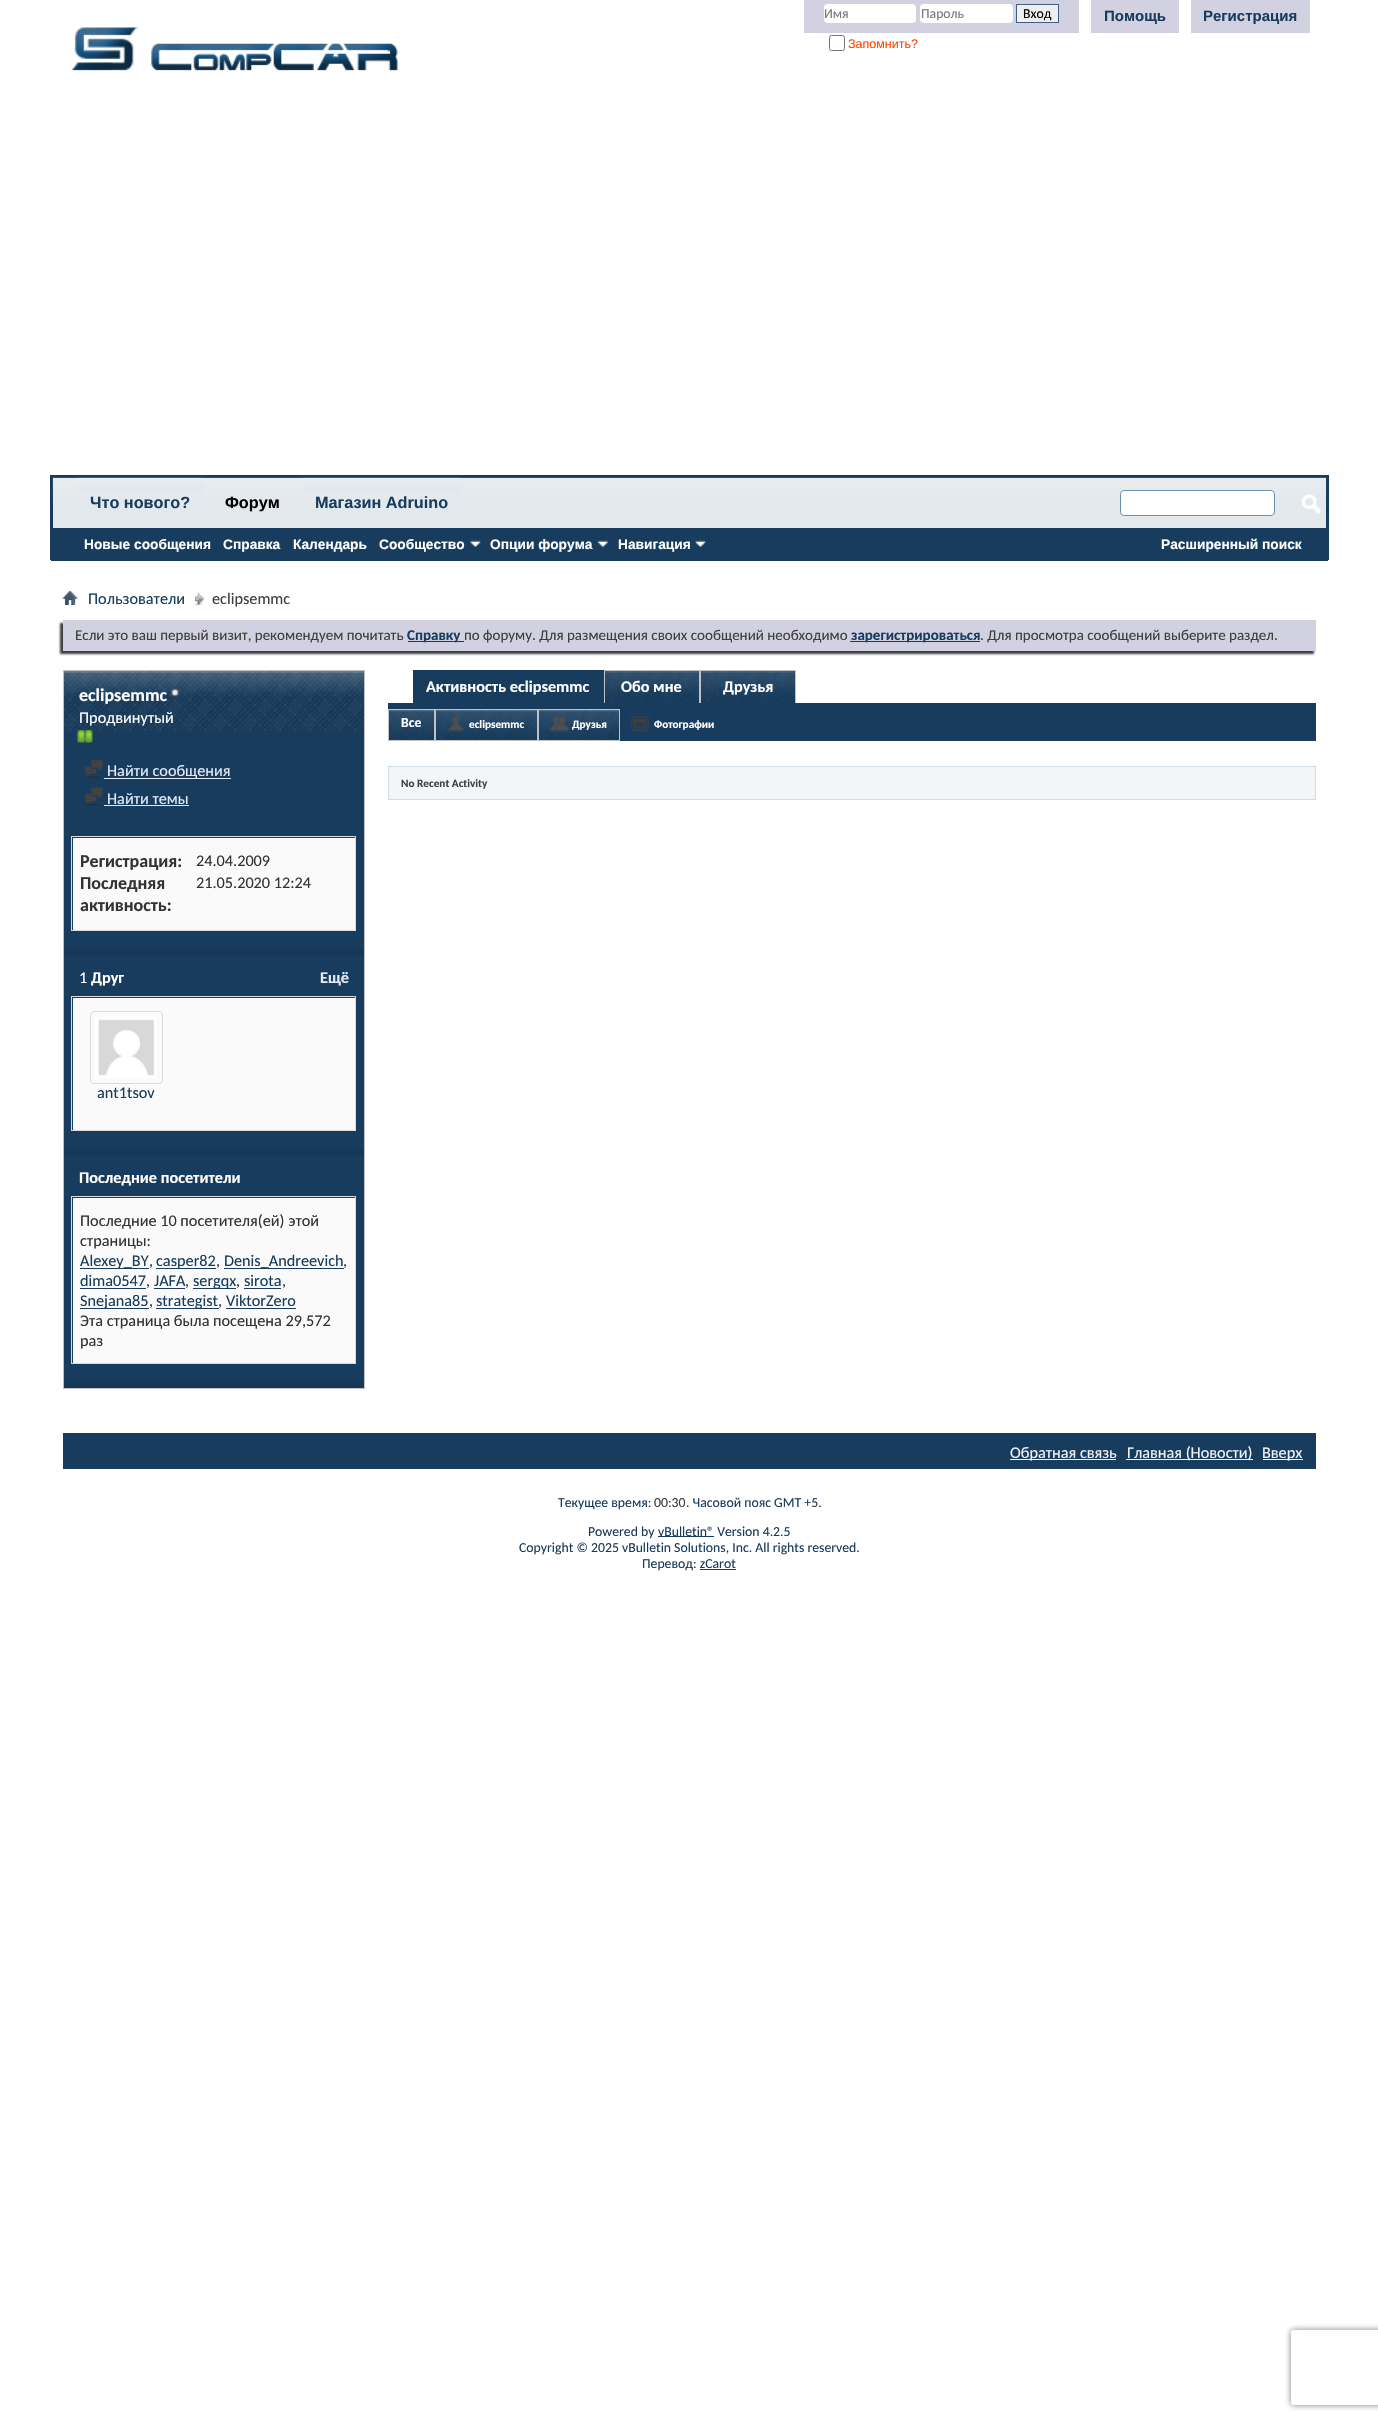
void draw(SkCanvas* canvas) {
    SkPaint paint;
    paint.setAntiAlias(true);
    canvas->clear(0xFFFFFFFF);
    canvas->drawImageRect(SkImages::DeferredFromEncodedData(SkData::MakeFromFileName("img1.png")), SkRect::MakeXYWH(71, 27, 327, 44), SkSamplingOptions());
    paint.setColor(0xFFD1D1E1);
    canvas->drawRect(SkRect::MakeXYWH(804, 0, 275, 33), paint);
    paint.setColor(0xFFFFFFFF);
    canvas->drawRoundRect(SkRect::MakeXYWH(824, 4, 92, 19), 4, 4, paint);
    SkFont font1(fontMgr->matchFamilyStyle("Carlito", SkFontStyle::Normal()), 13.75f);
    font1.setSubpixel(true);
    paint.setColor(0xFF777777);
    canvas->drawString("Имя", 824, 18, font1, paint);
    paint.setColor(0xFFFFFFFF);
    canvas->drawRoundRect(SkRect::MakeXYWH(920, 4, 93, 19), 4, 4, paint);
    paint.setColor(0xFF777777);
    canvas->drawString("Пароль", 921, 18, font1, paint);
    paint.setColor(0xFFEFEFEF);
    canvas->drawRect(SkRect::MakeXYWH(1016.5f, 4.5f, 42, 18), paint);
    paint.setStyle(SkPaint::kStroke_Style);
    paint.setStrokeWidth(1);
    paint.setColor(0xFF415D8D);
    canvas->drawRect(SkRect::MakeXYWH(1016.5f, 4.5f, 42, 18), paint);
    paint.setStyle(SkPaint::kFill_Style);
    paint.setColor(0xFF000000);
    canvas->drawString("Вход", 1023, 18, font1, paint);
    paint.setStyle(SkPaint::kStroke_Style);
    paint.setColor(0xFF767676);
    canvas->drawRoundRect(SkRect::MakeXYWH(829.5f, 35.5f, 15, 15), 2, 2, paint);
    SkFont font2(fontMgr->matchFamilyStyle("Liberation Sans", SkFontStyle::Normal()), 12.5f);
    font2.setSubpixel(true);
    paint.setStyle(SkPaint::kFill_Style);
    paint.setColor(0xFFFF4400);
    canvas->drawString("Запомнить?", 848, 48, font2, paint);
    paint.setColor(0xFFD1D1E1);
    canvas->drawRect(SkRect::MakeXYWH(1091, 0, 88, 33), paint);
    SkFont font3(fontMgr->matchFamilyStyle("Liberation Sans", SkFontStyle::Bold()), 15);
    font3.setSubpixel(true);
    paint.setColor(0xFF183C5D);
    canvas->drawString("Помощь", 1104, 21, font3, paint);
    paint.setColor(0xFFD1D1E1);
    canvas->drawRect(SkRect::MakeXYWH(1191, 0, 119, 33), paint);
    paint.setColor(0xFF183C5D);
    canvas->drawString("Регистрация", 1203, 21, font3, paint);
    canvas->drawRect(SkRect::MakeXYWH(50, 475, 1279, 85), paint);
    canvas->drawRect(SkRect::MakeXYWH(51, 560, 1277, 1), paint);
    paint.setColor(0xFFE3E8EC);
    canvas->drawRect(SkRect::MakeXYWH(53, 478, 1273, 50), paint);
    canvas->drawImageRect(SkImages::DeferredFromEncodedData(SkData::MakeFromFileName("img2.png")), SkRect::MakeXYWH(52, 477, 1275, 24), SkSamplingOptions());
    canvas->drawRect(SkRect::MakeXYWH(78, 478, 125, 15), paint);
    canvas->drawImageRect(SkImages::DeferredFromEncodedData(SkData::MakeFromFileName("img3.png")), SkRect::MakeXYWH(77, 477, 126, 8), SkSamplingOptions());
    SkFont font4(fontMgr->matchFamilyStyle("Liberation Sans", SkFontStyle::Bold()), 16.25f);
    font4.setSubpixel(true);
    paint.setColor(0xFF183C5D);
    canvas->drawString("Что нового?", 90, 508, font4, paint);
    paint.setColor(0xFF000000);
    canvas->drawString("Форум", 225, 508, font4, paint);
    paint.setColor(0xFFE3E8EC);
    canvas->drawRect(SkRect::MakeXYWH(303, 478, 158, 15), paint);
    canvas->drawImageRect(SkImages::DeferredFromEncodedData(SkData::MakeFromFileName("img4.png")), SkRect::MakeXYWH(302, 477, 160, 8), SkSamplingOptions());
    paint.setColor(0xFF183C5D);
    canvas->drawString("Магазин Adruino", 315, 508, font4, paint);
    SkFont font5(fontMgr->matchFamilyStyle("Liberation Sans", SkFontStyle::Bold()), 13.75f);
    font5.setSubpixel(true);
    paint.setColor(0xFFFFFFFF);
    canvas->drawString("Новые сообщения", 84, 549, font5, paint);
    canvas->drawString("Справка", 223, 549, font5, paint);
    canvas->drawString("Календарь", 293, 549, font5, paint);
    canvas->drawString("Сообщество", 379, 549, font5, paint);
    canvas->drawImageRect(SkImages::DeferredFromEncodedData(SkData::MakeFromFileName("img5.png")), SkRect::MakeXYWH(470, 540, 11, 7), SkSamplingOptions());
    canvas->drawString("Опции форума", 490, 549, font5, paint);
    canvas->drawImageRect(SkImages::DeferredFromEncodedData(SkData::MakeFromFileName("img6.png")), SkRect::MakeXYWH(597, 540, 12, 7), SkSamplingOptions());
    canvas->drawString("Навигация", 618, 549, font5, paint);
    canvas->drawImageRect(SkImages::DeferredFromEncodedData(SkData::MakeFromFileName("img5.png")), SkRect::MakeXYWH(695, 540, 11, 7), SkSamplingOptions());
    canvas->drawRoundRect(SkRect::MakeXYWH(1120.5f, 490.5f, 154, 25), 3.5f, 3.5f, paint);
    paint.setStyle(SkPaint::kStroke_Style);
    paint.setColor(0xFF6B91AB);
    canvas->drawRoundRect(SkRect::MakeXYWH(1120.5f, 490.5f, 154, 25), 3.5f, 3.5f, paint);
    canvas->drawImageRect(SkImages::DeferredFromEncodedData(SkData::MakeFromFileName("img7.png")), SkRect::MakeXYWH(1301, 494, 20, 20), SkSamplingOptions());
    paint.setStyle(SkPaint::kFill_Style);
    paint.setColor(0xFFFFFFFF);
    canvas->drawString("Расширенный поиск", 1161, 549, font5, paint);
    canvas->drawImageRect(SkImages::DeferredFromEncodedData(SkData::MakeFromFileName("img8.png")), SkRect::MakeXYWH(62, 591, 16, 14), SkSamplingOptions());
    canvas->drawImageRect(SkImages::DeferredFromEncodedData(SkData::MakeFromFileName("img9.png")), SkRect::MakeXYWH(195, 592, 9, 13), SkSamplingOptions());
    SkFont font6(fontMgr->matchFamilyStyle("Carlito", SkFontStyle::Normal()), 16.25f);
    font6.setSubpixel(true);
    paint.setColor(0xFF183C5D);
    canvas->drawString("Пользователи", 88, 604, font6, paint);
    paint.setColor(0xFF3E3E3E);
    canvas->drawString("eclipsemmc", 212, 604, font6, paint);
    paint.setMaskFilter(SkMaskFilter::MakeBlur(kNormal_SkBlurStyle, 1));
    canvas->drawRect(SkRect::MakeXYWH(60, 623, 1254, 31), paint);
    paint.setMaskFilter(nullptr);
    paint.setColor(0xFFD1D1E1);
    canvas->drawRect(SkRect::MakeXYWH(63, 620, 1253, 31), paint);
    SkFont font7(fontMgr->matchFamilyStyle("Carlito", SkFontStyle::Normal()), 15);
    font7.setSubpixel(true);
    paint.setColor(0xFF3E3E3E);
    canvas->drawString("Если это ваш первый визит, рекомендуем почитать", 75, 640, font7, paint);
    paint.setColor(0xFF183C5D);
    canvas->drawRect(SkRect::MakeXYWH(408, 641, 56, 1), paint);
    SkFont font8(fontMgr->matchFamilyStyle("Carlito", SkFontStyle::Bold()), 15);
    font8.setSubpixel(true);
    canvas->drawString("Справку", 407, 640, font8, paint);
    paint.setColor(0xFF3E3E3E);
    canvas->drawString("по форуму. Для размещения своих сообщений необходимо", 464, 640, font7, paint);
    paint.setColor(0xFF183C5D);
    canvas->drawRect(SkRect::MakeXYWH(850, 641, 130, 1), paint);
    canvas->drawString("зарегистрироваться", 851, 640, font8, paint);
    paint.setColor(0xFF3E3E3E);
    canvas->drawString(". Для просмотра сообщений выберите раздел.", 980, 640, font7, paint);
    paint.setColor(0xFF183C5D);
    canvas->drawRect(SkRect::MakeXYWH(64, 671, 300, 717), paint);
    canvas->drawImageRect(SkImages::DeferredFromEncodedData(SkData::MakeFromFileName("img10.png")), SkRect::MakeXYWH(62, 671, 302, 60), SkSamplingOptions());
    paint.setStyle(SkPaint::kStroke_Style);
    paint.setColor(0xFFC1C1C1);
    canvas->drawRect(SkRect::MakeXYWH(63.5f, 670.5f, 301, 718), paint);
    canvas->drawImageRect(SkImages::DeferredFromEncodedData(SkData::MakeFromFileName("img11.png")), SkRect::MakeXYWH(64, 671, 300, 60), SkSamplingOptions());
    SkFont font9(fontMgr->matchFamilyStyle("Carlito", SkFontStyle::Bold()), 18);
    font9.setSubpixel(true);
    paint.setStyle(SkPaint::kFill_Style);
    paint.setColor(0xFFFFFFFF);
    canvas->drawString("eclipsemmc", 79, 701, font9, paint);
    canvas->drawImageRect(SkImages::DeferredFromEncodedData(SkData::MakeFromFileName("img12.png")), SkRect::MakeXYWH(171, 688, 8, 9), SkSamplingOptions());
    canvas->drawString("Продвинутый", 79, 723, font6, paint);
    canvas->drawImageRect(SkImages::DeferredFromEncodedData(SkData::MakeFromFileName("img13.png")), SkRect::MakeXYWH(77, 730, 9, 13), SkSamplingOptions());
    canvas->drawImageRect(SkImages::DeferredFromEncodedData(SkData::MakeFromFileName("img14.png")), SkRect::MakeXYWH(85, 730, 8, 13), SkSamplingOptions());
    canvas->drawImageRect(SkImages::DeferredFromEncodedData(SkData::MakeFromFileName("img15.png")), SkRect::MakeXYWH(85, 760, 18, 19), SkSamplingOptions());
    paint.setColor(0xFFE2E9F4);
    canvas->drawRect(SkRect::MakeXYWH(104, 778, 127, 1), paint);
    canvas->drawString("Найти сообщения", 107, 776, font6, paint);
    canvas->drawImageRect(SkImages::DeferredFromEncodedData(SkData::MakeFromFileName("img16.png")), SkRect::MakeXYWH(85, 787, 18, 19), SkSamplingOptions());
    canvas->drawString("Найти темы", 107, 804, font6, paint);
    canvas->drawRect(SkRect::MakeXYWH(104, 805, 85, 1), paint);
    paint.setStyle(SkPaint::kStroke_Style);
    paint.setColor(0xFFDADADA);
    canvas->drawRect(SkRect::MakeXYWH(71.5f, 836.5f, 284, 94), paint);
    paint.setStyle(SkPaint::kFill_Style);
    paint.setColor(0xFFFAFAFA);
    canvas->drawRect(SkRect::MakeXYWH(73, 838, 282, 92), paint);
    paint.setColor(0xFF333333);
    canvas->drawString("Регистрация:", 80, 867, font9, paint);
    canvas->drawString("24.04.2009", 196, 866, font6, paint);
    canvas->drawString("Последняя", 80, 889, font9, paint);
    canvas->drawString("активность:", 80, 911, font9, paint);
    canvas->drawString("21.05.2020 12:24", 196, 888, font6, paint);
    canvas->drawImageRect(SkImages::DeferredFromEncodedData(SkData::MakeFromFileName("img17.png")), SkRect::MakeXYWH(63, 949, 301, 6), SkSamplingOptions());
    paint.setColor(0xFFFFFFFF);
    canvas->drawString("1", 79, 983, font6, paint);
    SkFont font10(fontMgr->matchFamilyStyle("Carlito", SkFontStyle::Bold()), 16.25f);
    font10.setSubpixel(true);
    canvas->drawString("Друг", 91, 983, font10, paint);
    paint.setColor(0xFFE2E9F4);
    canvas->drawString("Ещё", 320, 983, font10, paint);
    paint.setStyle(SkPaint::kStroke_Style);
    paint.setColor(0xFFDADADA);
    canvas->drawRect(SkRect::MakeXYWH(71.5f, 996.5f, 284, 134), paint);
    paint.setStyle(SkPaint::kFill_Style);
    paint.setColor(0xFFFAFAFA);
    canvas->drawRect(SkRect::MakeXYWH(73, 998, 282, 132), paint);
    paint.setStyle(SkPaint::kStroke_Style);
    paint.setColor(0xFFDADADA);
    canvas->drawRoundRect(SkRect::MakeXYWH(90.5f, 1011.5f, 72, 72), 3.5f, 3.5f, paint);
    canvas->drawImageRect(SkImages::DeferredFromEncodedData(SkData::MakeFromFileName("img18.png")), SkRect::MakeXYWH(95, 1017, 62, 61), SkSamplingOptions());
    paint.setStyle(SkPaint::kFill_Style);
    paint.setColor(0xFF183C5D);
    canvas->drawString("ant1tsov", 97, 1098, font6, paint);
    canvas->drawImageRect(SkImages::DeferredFromEncodedData(SkData::MakeFromFileName("img17.png")), SkRect::MakeXYWH(63, 1149, 301, 6), SkSamplingOptions());
    paint.setColor(0xFFFFFFFF);
    canvas->drawString("Последние посетители", 79, 1183, font10, paint);
    paint.setStyle(SkPaint::kStroke_Style);
    paint.setColor(0xFFDADADA);
    canvas->drawRect(SkRect::MakeXYWH(71.5f, 1196.5f, 284, 167), paint);
    paint.setStyle(SkPaint::kFill_Style);
    paint.setColor(0xFFFAFAFA);
    canvas->drawRect(SkRect::MakeXYWH(73, 1198, 282, 165), paint);
    paint.setColor(0xFF333333);
    canvas->drawString("Последние 10 посетителя(ей) этой", 80, 1226, font6, paint);
    canvas->drawString("страницы:", 80, 1246, font6, paint);
    paint.setColor(0xFF183C5D);
    canvas->drawRect(SkRect::MakeXYWH(80, 1268, 69, 1), paint);
    canvas->drawString("Alexey_BY", 80, 1266, font6, paint);
    paint.setColor(0xFF333333);
    canvas->drawString(",", 149, 1266, font6, paint);
    paint.setColor(0xFF183C5D);
    canvas->drawRect(SkRect::MakeXYWH(156, 1268, 60, 1), paint);
    canvas->drawString("casper82", 156, 1266, font6, paint);
    paint.setColor(0xFF333333);
    canvas->drawString(",", 216, 1266, font6, paint);
    paint.setColor(0xFF183C5D);
    canvas->drawRect(SkRect::MakeXYWH(224, 1268, 120, 1), paint);
    canvas->drawString("Denis_Andreevich", 224, 1266, font6, paint);
    paint.setColor(0xFF333333);
    canvas->drawString(",", 343, 1266, font6, paint);
    paint.setColor(0xFF183C5D);
    canvas->drawString("dima0547", 80, 1286, font6, paint);
    canvas->drawRect(SkRect::MakeXYWH(80, 1288, 66, 1), paint);
    paint.setColor(0xFF333333);
    canvas->drawString(",", 146, 1286, font6, paint);
    paint.setColor(0xFF183C5D);
    canvas->drawString("JAFA", 154, 1286, font6, paint);
    canvas->drawRect(SkRect::MakeXYWH(154, 1288, 31, 1), paint);
    paint.setColor(0xFF333333);
    canvas->drawString(",", 185, 1286, font6, paint);
    paint.setColor(0xFF183C5D);
    canvas->drawRect(SkRect::MakeXYWH(193, 1288, 43, 1), paint);
    canvas->drawString("sergqx", 193, 1286, font6, paint);
    paint.setColor(0xFF333333);
    canvas->drawString(",", 236, 1286, font6, paint);
    paint.setColor(0xFF183C5D);
    canvas->drawString("sirota", 244, 1286, font6, paint);
    canvas->drawRect(SkRect::MakeXYWH(244, 1288, 37, 1), paint);
    paint.setColor(0xFF333333);
    canvas->drawString(",", 282, 1286, font6, paint);
    paint.setColor(0xFF183C5D);
    canvas->drawRect(SkRect::MakeXYWH(80, 1308, 69, 1), paint);
    canvas->drawString("Snejana85", 80, 1306, font6, paint);
    paint.setColor(0xFF333333);
    canvas->drawString(",", 149, 1306, font6, paint);
    paint.setColor(0xFF183C5D);
    canvas->drawRect(SkRect::MakeXYWH(156, 1308, 63, 1), paint);
    canvas->drawString("strategist", 156, 1306, font6, paint);
    paint.setColor(0xFF333333);
    canvas->drawString(",", 218, 1306, font6, paint);
    paint.setColor(0xFF183C5D);
    canvas->drawString("ViktorZero", 226, 1306, font6, paint);
    canvas->drawRect(SkRect::MakeXYWH(226, 1308, 70, 1), paint);
    paint.setColor(0xFF333333);
    canvas->drawString("Эта страница была посещена 29,572", 80, 1326, font6, paint);
    canvas->drawString("раз", 80, 1346, font6, paint);
    canvas->drawImageRect(SkImages::DeferredFromEncodedData(SkData::MakeFromFileName("img19.png")), SkRect::MakeXYWH(63, 1381, 301, 7), SkSamplingOptions());
    paint.setColor(0xFF183C5D);
    canvas->drawRect(SkRect::MakeXYWH(414, 671, 189, 32), paint);
    canvas->drawRect(SkRect::MakeXYWH(413, 670, 191, 1), paint);
    canvas->drawRect(SkRect::MakeXYWH(603, 670, 1, 33), paint);
    canvas->drawRect(SkRect::MakeXYWH(413, 670, 1, 33), paint);
    paint.setColor(0xFFFFFFFF);
    canvas->drawString("Активность eclipsemmc", 426, 692, font10, paint);
    paint.setColor(0xFF183C5D);
    canvas->drawRect(SkRect::MakeXYWH(605, 671, 94, 32), paint);
    canvas->drawImageRect(SkImages::DeferredFromEncodedData(SkData::MakeFromFileName("img20.png")), SkRect::MakeXYWH(603, 671, 96, 31), SkSamplingOptions());
    paint.setColor(0xFFC1C1C1);
    canvas->drawRect(SkRect::MakeXYWH(604, 670, 192, 1), paint);
    canvas->drawRect(SkRect::MakeXYWH(699, 670, 2, 33), paint);
    canvas->drawRect(SkRect::MakeXYWH(604, 670, 1, 33), paint);
    paint.setColor(0xFFFFFFFF);
    canvas->drawString("Обо мне", 621, 692, font10, paint);
    paint.setColor(0xFF183C5D);
    canvas->drawRect(SkRect::MakeXYWH(701, 671, 94, 32), paint);
    canvas->drawImageRect(SkImages::DeferredFromEncodedData(SkData::MakeFromFileName("img21.png")), SkRect::MakeXYWH(701, 671, 94, 31), SkSamplingOptions());
    paint.setColor(0xFFC1C1C1);
    canvas->drawRect(SkRect::MakeXYWH(795, 670, 1, 33), paint);
    paint.setColor(0xFFFFFFFF);
    canvas->drawString("Друзья", 723, 692, font10, paint);
    paint.setColor(0xFF183C5D);
    canvas->drawRect(SkRect::MakeXYWH(388, 703, 928, 6), paint);
    canvas->drawRect(SkRect::MakeXYWH(389, 709, 927, 32), paint);
    canvas->drawImageRect(SkImages::DeferredFromEncodedData(SkData::MakeFromFileName("img22.png")), SkRect::MakeXYWH(389, 710, 45, 30), SkSamplingOptions());
    paint.setStyle(SkPaint::kStroke_Style);
    paint.setColor(0xFFC1C1C1);
    canvas->drawRect(SkRect::MakeXYWH(388.5f, 709.5f, 46, 31), paint);
    SkFont font11(fontMgr->matchFamilyStyle("Carlito", SkFontStyle::Bold()), 13.75f);
    font11.setSubpixel(true);
    paint.setStyle(SkPaint::kFill_Style);
    paint.setColor(0xFFFFFFFF);
    canvas->drawString("Все", 401, 727, font11, paint);
    canvas->drawImageRect(SkImages::DeferredFromEncodedData(SkData::MakeFromFileName("img23.png")), SkRect::MakeXYWH(436, 710, 101, 30), SkSamplingOptions());
    paint.setStyle(SkPaint::kStroke_Style);
    paint.setColor(0xFFC1C1C1);
    canvas->drawRect(SkRect::MakeXYWH(435.5f, 709.5f, 102, 31), paint);
    canvas->drawImageRect(SkImages::DeferredFromEncodedData(SkData::MakeFromFileName("img24.png")), SkRect::MakeXYWH(447, 716, 18, 17), SkSamplingOptions());
    SkFont font12(fontMgr->matchFamilyStyle("Carlito", SkFontStyle::Bold()), 11.25f);
    font12.setSubpixel(true);
    paint.setStyle(SkPaint::kFill_Style);
    paint.setColor(0xFFFFFFFF);
    canvas->drawString("eclipsemmc", 469, 728, font12, paint);
    canvas->drawImageRect(SkImages::DeferredFromEncodedData(SkData::MakeFromFileName("img25.png")), SkRect::MakeXYWH(537, 710, 82, 30), SkSamplingOptions());
    paint.setStyle(SkPaint::kStroke_Style);
    paint.setColor(0xFFC1C1C1);
    canvas->drawRect(SkRect::MakeXYWH(538.5f, 709.5f, 81, 31), paint);
    canvas->drawImageRect(SkImages::DeferredFromEncodedData(SkData::MakeFromFileName("img26.png")), SkRect::MakeXYWH(549, 716, 20, 17), SkSamplingOptions());
    paint.setStyle(SkPaint::kFill_Style);
    paint.setColor(0xFFFFFFFF);
    canvas->drawString("Друзья", 572, 728, font12, paint);
    canvas->drawImageRect(SkImages::DeferredFromEncodedData(SkData::MakeFromFileName("img27.png")), SkRect::MakeXYWH(631, 716, 18, 17), SkSamplingOptions());
    canvas->drawString("Фотографии", 654, 728, font12, paint);
    paint.setColor(0xFFF2F6F8);
    canvas->drawRect(SkRect::MakeXYWH(388.5f, 766.5f, 927, 33), paint);
    paint.setStyle(SkPaint::kStroke_Style);
    paint.setColor(0xFFCEDFEB);
    canvas->drawRect(SkRect::MakeXYWH(388.5f, 766.5f, 927, 33), paint);
    paint.setStyle(SkPaint::kFill_Style);
    paint.setColor(0xFF3E3E3E);
    canvas->drawString("No Recent Activity", 401, 787, font12, paint);
    paint.setColor(0xFF183C5D);
    canvas->drawRect(SkRect::MakeXYWH(63, 1433, 1253, 36), paint);
    paint.setColor(0xFFF1F2F3);
    canvas->drawRect(SkRect::MakeXYWH(1010, 1459, 106, 1), paint);
    canvas->drawString("Обратная связь", 1010, 1458, font6, paint);
    canvas->drawRect(SkRect::MakeXYWH(1126, 1459, 127, 1), paint);
    canvas->drawString("Главная (Новости)", 1127, 1458, font6, paint);
    canvas->drawRect(SkRect::MakeXYWH(1263, 1459, 40, 1), paint);
    canvas->drawString("Вверх", 1262, 1458, font6, paint);
    paint.setColor(0xFF183C5D);
    canvas->drawString("Текущее время:", 558, 1507, font1, paint);
    paint.setColor(0xFF3E3E3E);
    canvas->drawString("00:30", 654, 1507, font1, paint);
    paint.setColor(0xFF183C5D);
    canvas->drawString(". Часовой пояс GMT +5.", 686, 1507, font1, paint);
    canvas->drawString("Powered by", 588, 1536, font1, paint);
    canvas->drawRect(SkRect::MakeXYWH(658, 1536, 56, 1), paint);
    canvas->drawString("vBulletin® Version 4.2.5", 658, 1536, font1, paint);
    canvas->drawString("Copyright © 2025 vBulletin Solutions, Inc. All rights reserved.", 519, 1552, font1, paint);
    canvas->drawString("Перевод: zCarot", 642, 1568, font1, paint);
    canvas->drawRect(SkRect::MakeXYWH(700, 1569, 36, 1), paint);
    canvas->save();
    canvas->clipPath(SkPathBuilder(SkPathFillType::kEvenOdd).moveTo(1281, 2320).lineTo(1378, 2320).lineTo(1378, 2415).lineTo(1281, 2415).close().moveTo(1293.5f, 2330).lineTo(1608.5f, 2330).cubicTo(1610, 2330, 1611, 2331, 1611, 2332.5f).lineTo(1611, 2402.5f).cubicTo(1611, 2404, 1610, 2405, 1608.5f, 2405).lineTo(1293.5f, 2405).cubicTo(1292, 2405, 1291, 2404, 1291, 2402.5f).lineTo(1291, 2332.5f).cubicTo(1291, 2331, 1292, 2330, 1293.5f, 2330).close().detach(), true);
    paint.setColor(0xFF808080);
    paint.setMaskFilter(SkMaskFilter::MakeBlur(kNormal_SkBlurStyle, 3));
    canvas->drawRoundRect(SkRect::MakeXYWH(1291, 2330, 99, 75), 2.5f, 2.5f, paint);
    paint.setMaskFilter(nullptr);
    canvas->restore();
}
